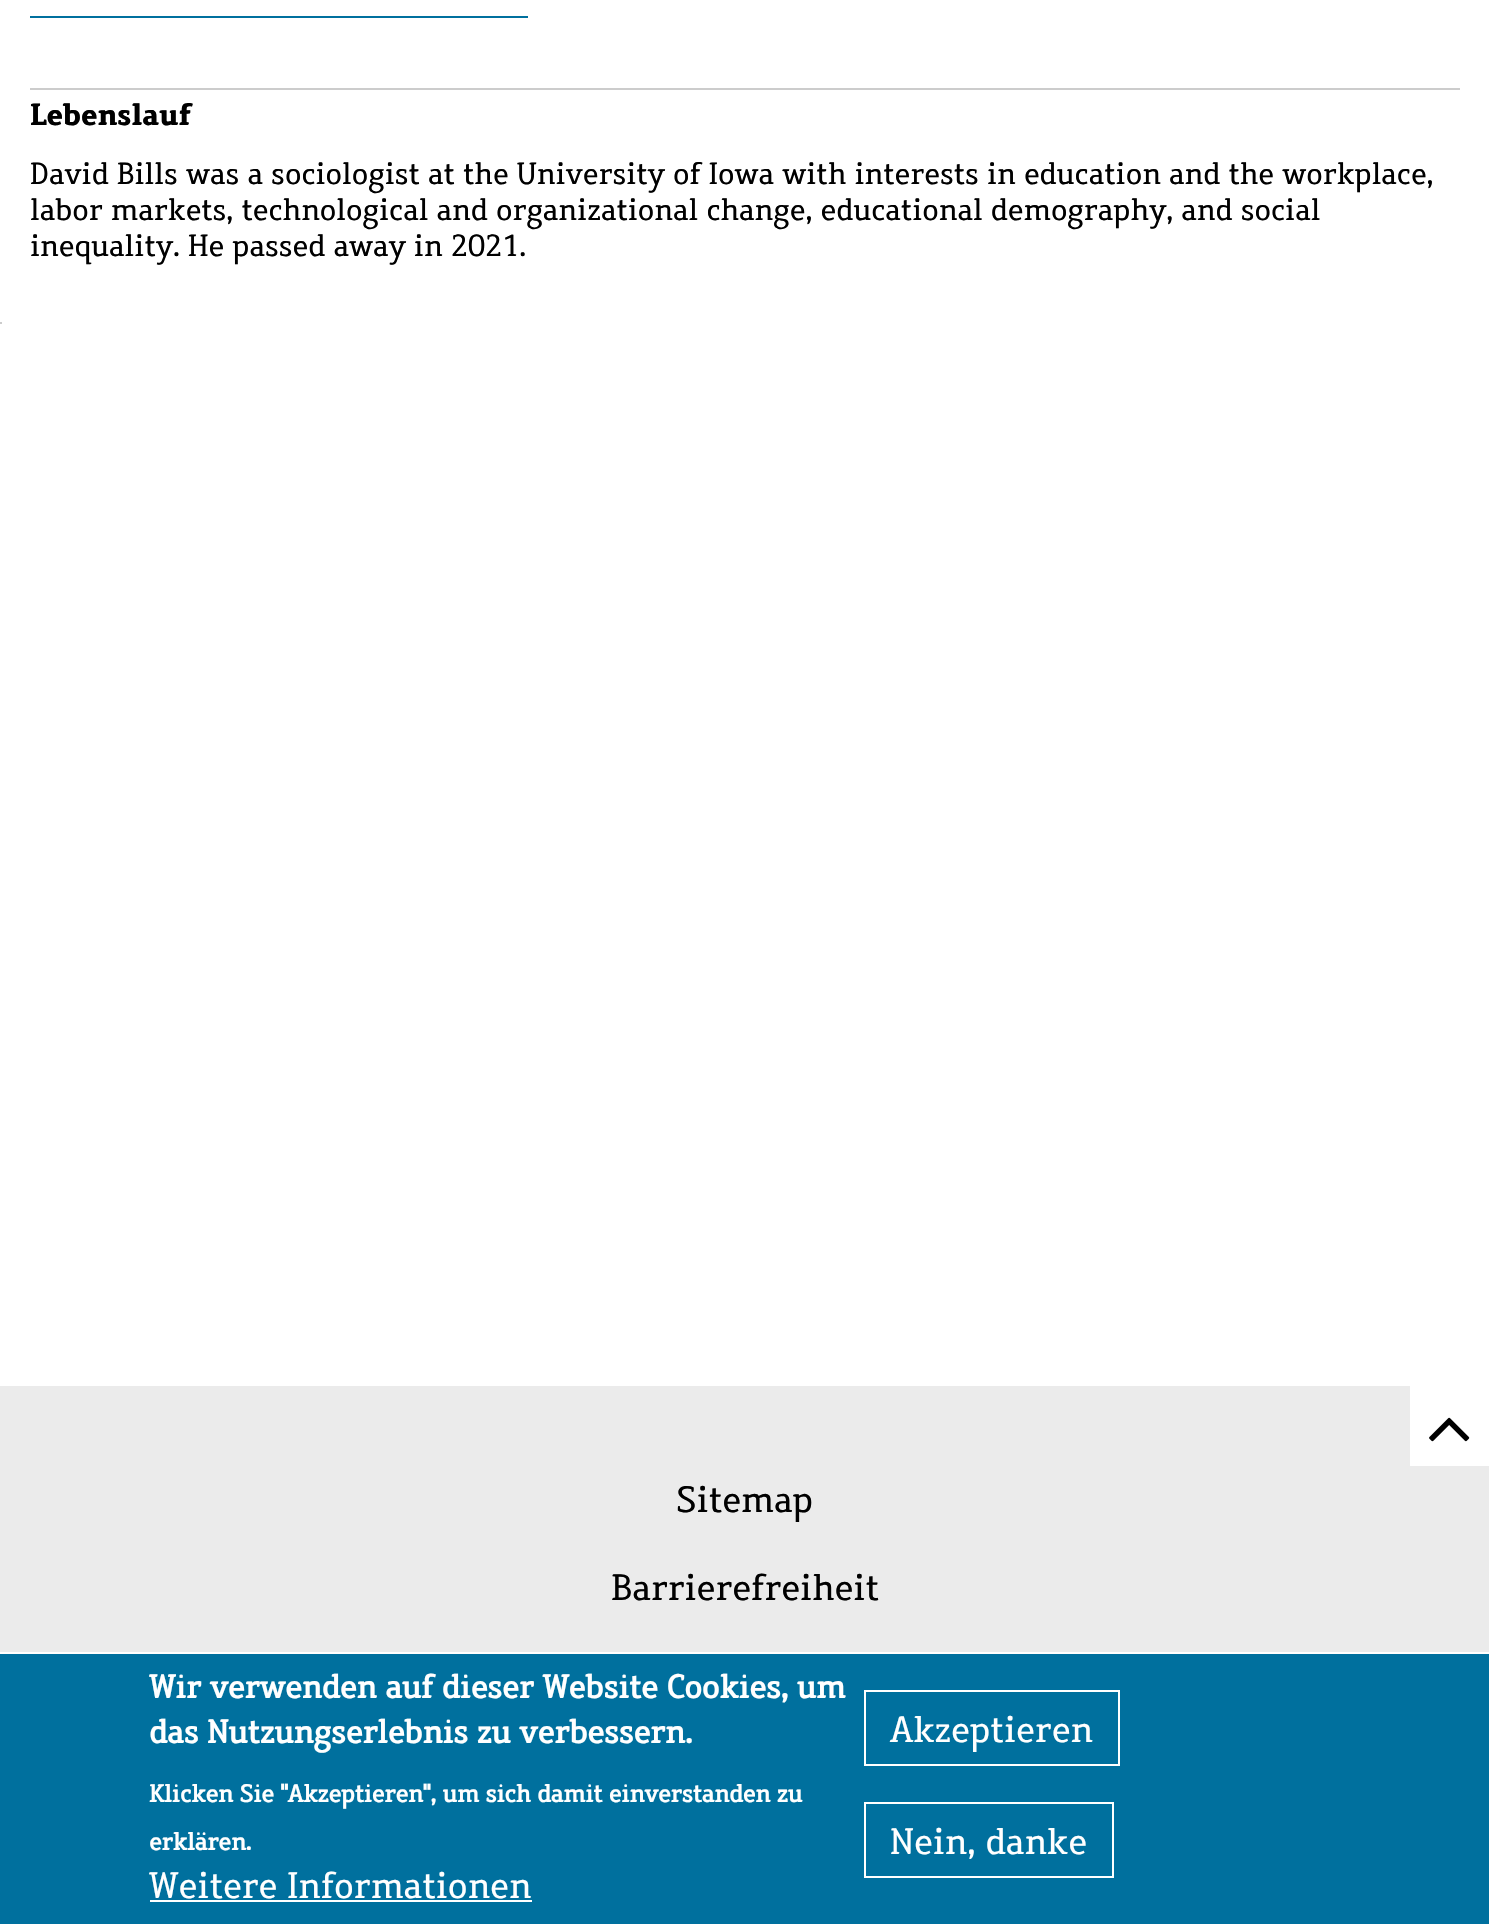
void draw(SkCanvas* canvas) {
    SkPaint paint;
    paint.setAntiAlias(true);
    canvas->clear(0xFFEBEBEB);
    paint.setColor(0xFFFFFFFF);
    canvas->drawRect(SkRect::MakeXYWH(0, 0, 1489, 1386), paint);
    paint.setColor(0xFF00709E);
    canvas->drawRect(SkRect::MakeXYWH(30, 16, 498, 2), paint);
    paint.setColor(0xFFCCCCCC);
    canvas->drawRect(SkRect::MakeXYWH(30, 88, 1430, 2), paint);
    SkFont font1(fontMgr->matchFamilyStyle("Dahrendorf", SkFontStyle::Bold()), 30);
    font1.setSubpixel(true);
    paint.setColor(0xFF000000);
    canvas->drawString("Lebenslauf", 30, 125, font1, paint);
    SkFont font2(fontMgr->matchFamilyStyle("Dahrendorf", SkFontStyle::Normal()), 30);
    font2.setSubpixel(true);
    canvas->drawString("David Bills was a sociologist at the University of Iowa with interests in education and the workplace,", 30, 184, font2, paint);
    canvas->drawString("labor markets, technological and organizational change, educational demography, and social", 30, 220, font2, paint);
    canvas->drawString("inequality. He passed away in 2021.", 30, 256, font2, paint);
    paint.setColor(0xFFCCCCCC);
    canvas->drawRect(SkRect::MakeXYWH(0, 322, 2, 2), paint);
    paint.setColor(0xFFFFFFFF);
    canvas->drawRect(SkRect::MakeXYWH(1410, 1386, 79, 80), paint);
    canvas->drawImageRect(SkImages::DeferredFromEncodedData(SkData::MakeFromFileName("img1.png")), SkRect::MakeXYWH(1429, 1417, 41, 25), SkSamplingOptions());
    SkFont font3(fontMgr->matchFamilyStyle("Dahrendorf", SkFontStyle::Normal()), 36);
    font3.setSubpixel(true);
    paint.setColor(0xFF000000);
    canvas->drawString("Sitemap", 676, 1512, font3, paint);
    canvas->drawString("Barrierefreiheit", 611, 1600, font3, paint);
    paint.setColor(0xFF00709E);
    canvas->drawRect(SkRect::MakeXYWH(0, 1654, 1489, 270), paint);
    paint.setColor(0xFFFFFFFF);
    canvas->drawRect(SkRect::MakeXYWH(0, 1652, 1489, 2), paint);
    SkFont font4(fontMgr->matchFamilyStyle("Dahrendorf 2", SkFontStyle::Bold()), 32);
    font4.setSubpixel(true);
    canvas->drawString("Wir verwenden auf dieser Website Cookies, um", 149, 1698, font4, paint);
    canvas->drawString("das Nutzungserlebnis zu verbessern.", 149, 1743, font4, paint);
    SkFont font5(fontMgr->matchFamilyStyle("Dahrendorf 2", SkFontStyle::Bold()), 24);
    font5.setSubpixel(true);
    canvas->drawString("Klicken Sie \"Akzeptieren\", um sich damit einverstanden zu", 149, 1802, font5, paint);
    canvas->drawString("erklären.", 149, 1850, font5, paint);
    canvas->drawString("Weitere Informationen", 149, 1898, font3, paint);
    canvas->drawRect(SkRect::MakeXYWH(150, 1900, 382, 2), paint);
    paint.setStyle(SkPaint::kStroke_Style);
    paint.setStrokeWidth(2);
    canvas->drawRect(SkRect::MakeXYWH(865, 1691, 254, 74), paint);
    paint.setStyle(SkPaint::kFill_Style);
    canvas->drawString("Akzeptieren", 890, 1742, font3, paint);
    paint.setStyle(SkPaint::kStroke_Style);
    canvas->drawRect(SkRect::MakeXYWH(865, 1803, 248, 74), paint);
    paint.setStyle(SkPaint::kFill_Style);
    canvas->drawString("Nein, danke", 890, 1854, font3, paint);
}
